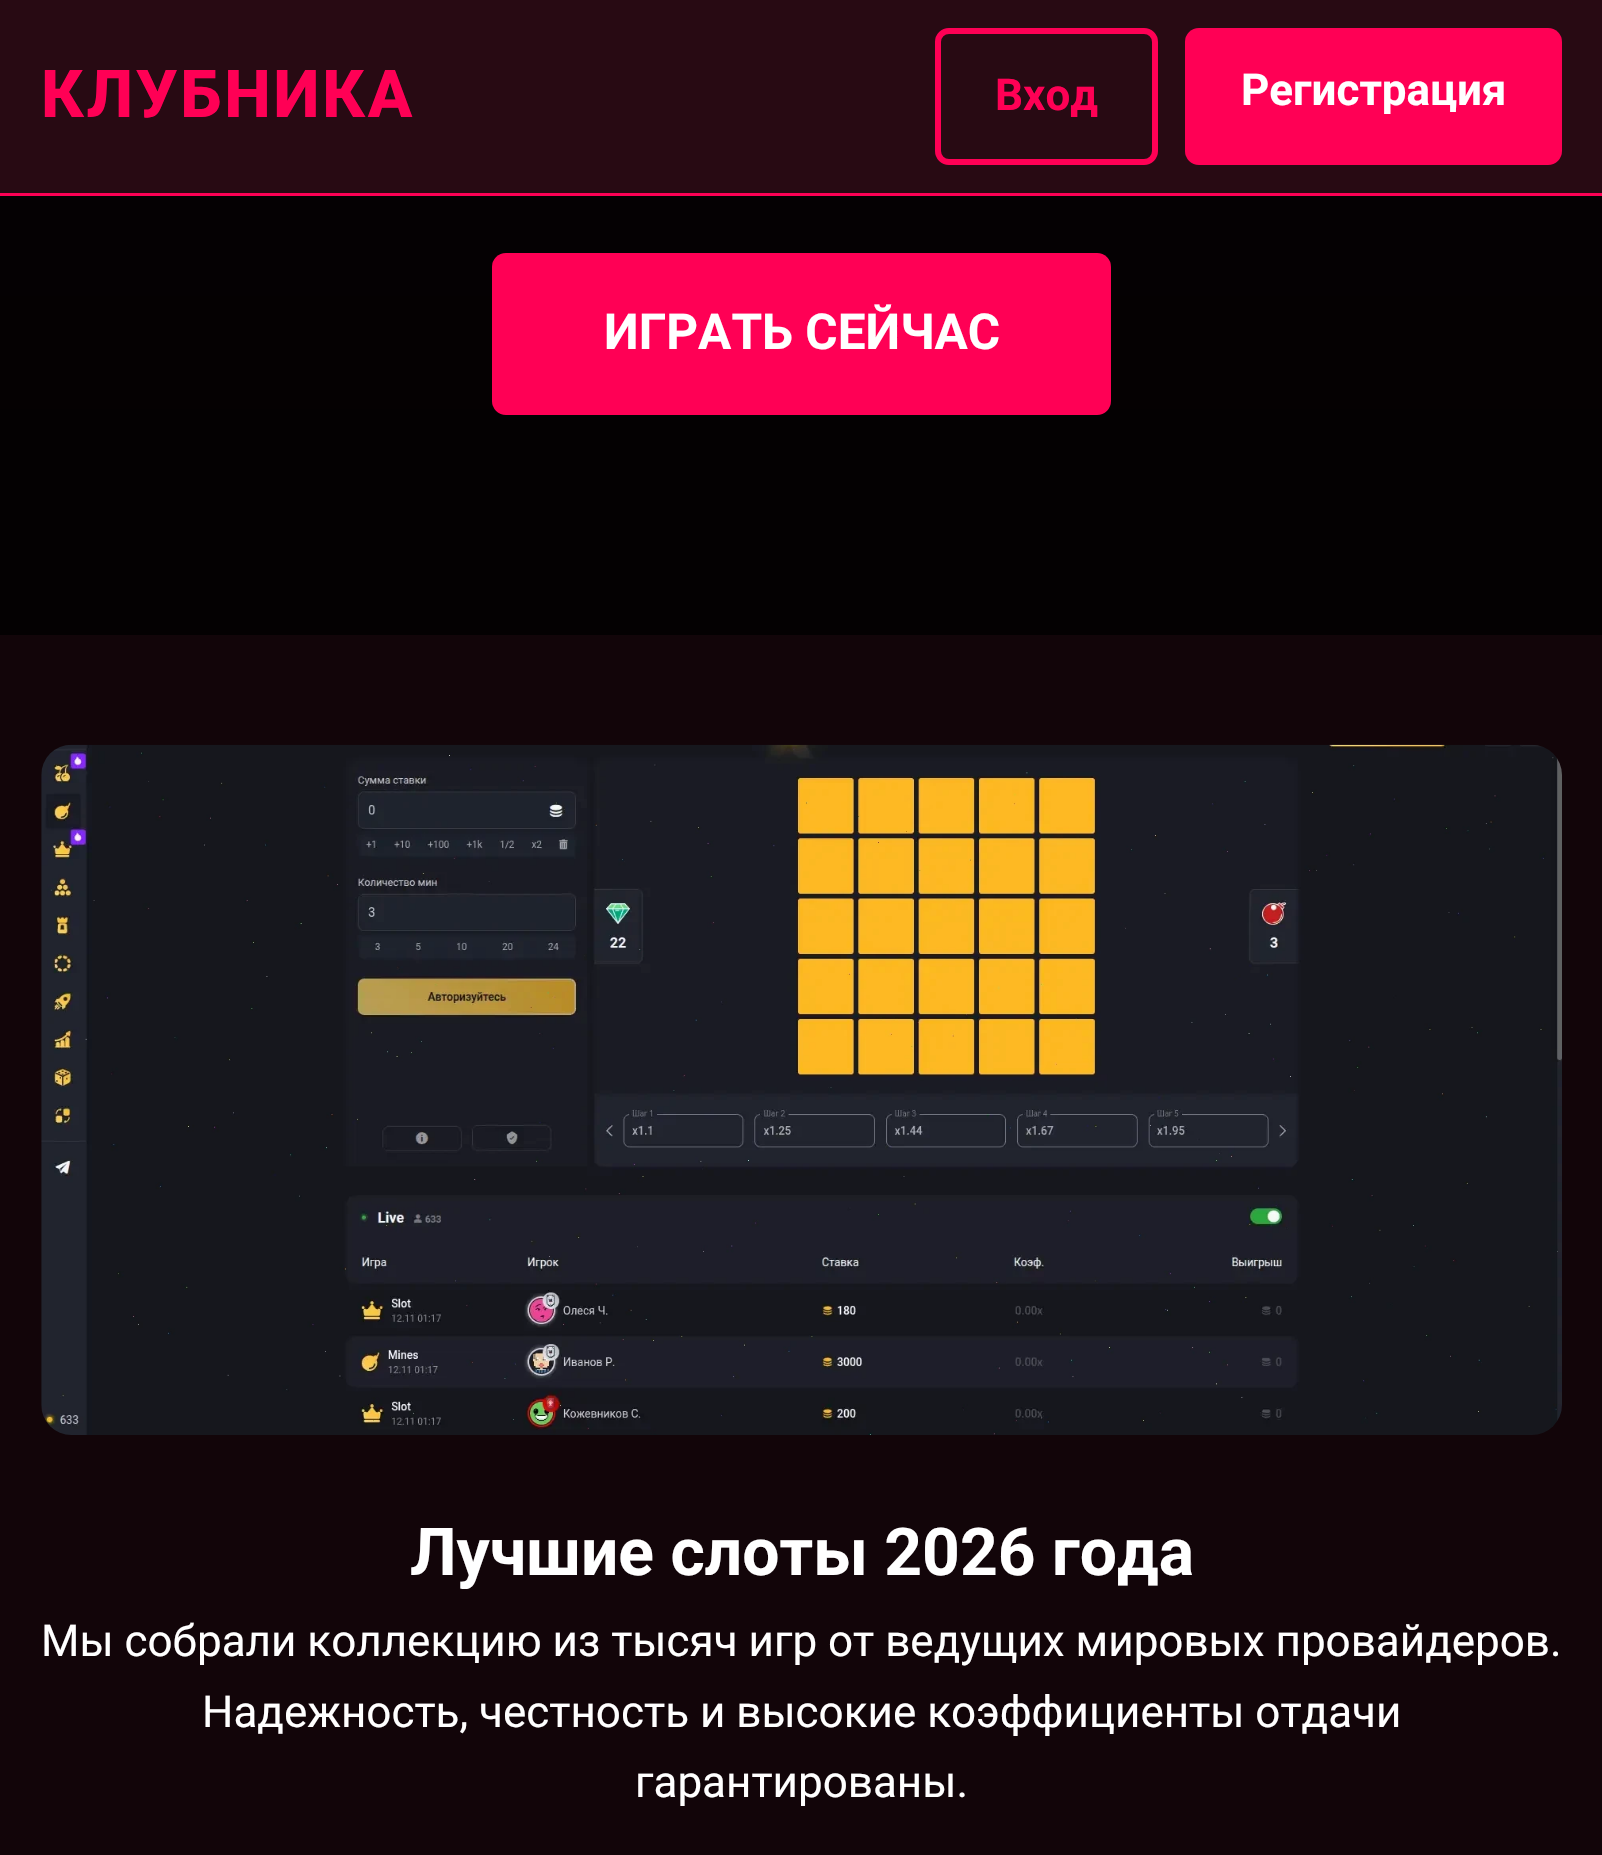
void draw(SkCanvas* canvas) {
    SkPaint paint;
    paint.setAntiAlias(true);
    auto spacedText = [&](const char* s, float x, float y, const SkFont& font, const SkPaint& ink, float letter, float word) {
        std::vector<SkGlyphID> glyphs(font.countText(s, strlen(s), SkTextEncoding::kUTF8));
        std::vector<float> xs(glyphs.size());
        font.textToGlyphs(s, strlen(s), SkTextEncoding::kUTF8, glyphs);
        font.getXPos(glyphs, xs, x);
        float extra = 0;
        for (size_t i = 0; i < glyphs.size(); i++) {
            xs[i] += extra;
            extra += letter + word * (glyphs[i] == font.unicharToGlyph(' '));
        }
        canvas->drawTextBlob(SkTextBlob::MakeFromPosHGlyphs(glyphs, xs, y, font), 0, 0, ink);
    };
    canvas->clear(0xFF120509);
    paint.setColor(0xFFFF0055);
    canvas->drawRect(SkRect::MakeXYWH(0, 193, 1602, 3), paint);
    {
        const SkColor colors[] = {0xFF280A13, 0xFF280A13};
        const float stops[] = {0, 1};
        const SkPoint ends[] = {{802, -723}, {802, 635}};
        paint.setShader(SkGradientShader::MakeLinear(ends, colors, stops, 2, SkTileMode::kClamp));
        paint.setAlpha(255);
    }
    canvas->drawRect(SkRect::MakeXYWH(0, 0, 1602, 193), paint);
    SkFont font1(fontMgr->matchFamilyStyle("Roboto", SkFontStyle(800, SkFontStyle::kNormal_Width, SkFontStyle::kUpright_Slant)), 66);
    font1.setSubpixel(true);
    paint.setShader(nullptr);
    paint.setColor(0xFFFF0055);
    spacedText("КЛУБНИКА", 41, 117, font1, paint, 2.75f, 0);
    paint.setStyle(SkPaint::kStroke_Style);
    paint.setStrokeWidth(6);
    canvas->drawRoundRect(SkRect::MakeXYWH(938, 31, 217, 131), 11, 11, paint);
    SkFont font2(fontMgr->matchFamilyStyle("Roboto", SkFontStyle::Bold()), 44);
    font2.setSubpixel(true);
    paint.setStyle(SkPaint::kFill_Style);
    canvas->drawString("Вход", 995, 110, font2, paint);
    canvas->drawRoundRect(SkRect::MakeXYWH(1185, 28, 377, 137), 14, 14, paint);
    paint.setColor(0xFFFFFFFF);
    canvas->drawString("Регистрация", 1241, 105, font2, paint);
    {
        const SkColor colors[] = {0xFF070204, 0xFF040102};
        const float stops[] = {0, 1};
        const SkPoint ends[] = {{802, -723}, {802, 635}};
        paint.setShader(SkGradientShader::MakeLinear(ends, colors, stops, 2, SkTileMode::kClamp));
        paint.setAlpha(255);
    }
    canvas->drawRect(SkRect::MakeXYWH(0, 196, 1602, 439), paint);
    paint.setShader(nullptr);
    paint.setColor(0xFFFF0055);
    canvas->drawRoundRect(SkRect::MakeXYWH(492, 253, 619, 162), 14, 14, paint);
    SkFont font3(fontMgr->matchFamilyStyle("Roboto", SkFontStyle::Bold()), 49.5f);
    font3.setSubpixel(true);
    paint.setColor(0xFFFFFFFF);
    canvas->drawString("ИГРАТЬ СЕЙЧАС", 604, 349, font3, paint);
    canvas->drawImageRect(SkImages::DeferredFromEncodedData(SkData::MakeFromFileName("img1.png")), SkRect::MakeXYWH(41, 744, 1521, 691), SkSamplingOptions());
    SkFont font4(fontMgr->matchFamilyStyle("Roboto", SkFontStyle::Bold()), 66);
    font4.setSubpixel(true);
    canvas->drawString("Лучшие слоты 2026 года", 410, 1575, font4, paint);
    SkFont font5(fontMgr->matchFamilyStyle("Roboto", SkFontStyle::Normal()), 44);
    font5.setSubpixel(true);
    canvas->drawString("Мы собрали коллекцию из тысяч игр от ведущих мировых провайдеров.", 41, 1656, font5, paint);
    canvas->drawString("Надежность, честность и высокие коэффициенты отдачи", 202, 1727, font5, paint);
    canvas->drawString("гарантированы.", 635, 1797, font5, paint);
}
